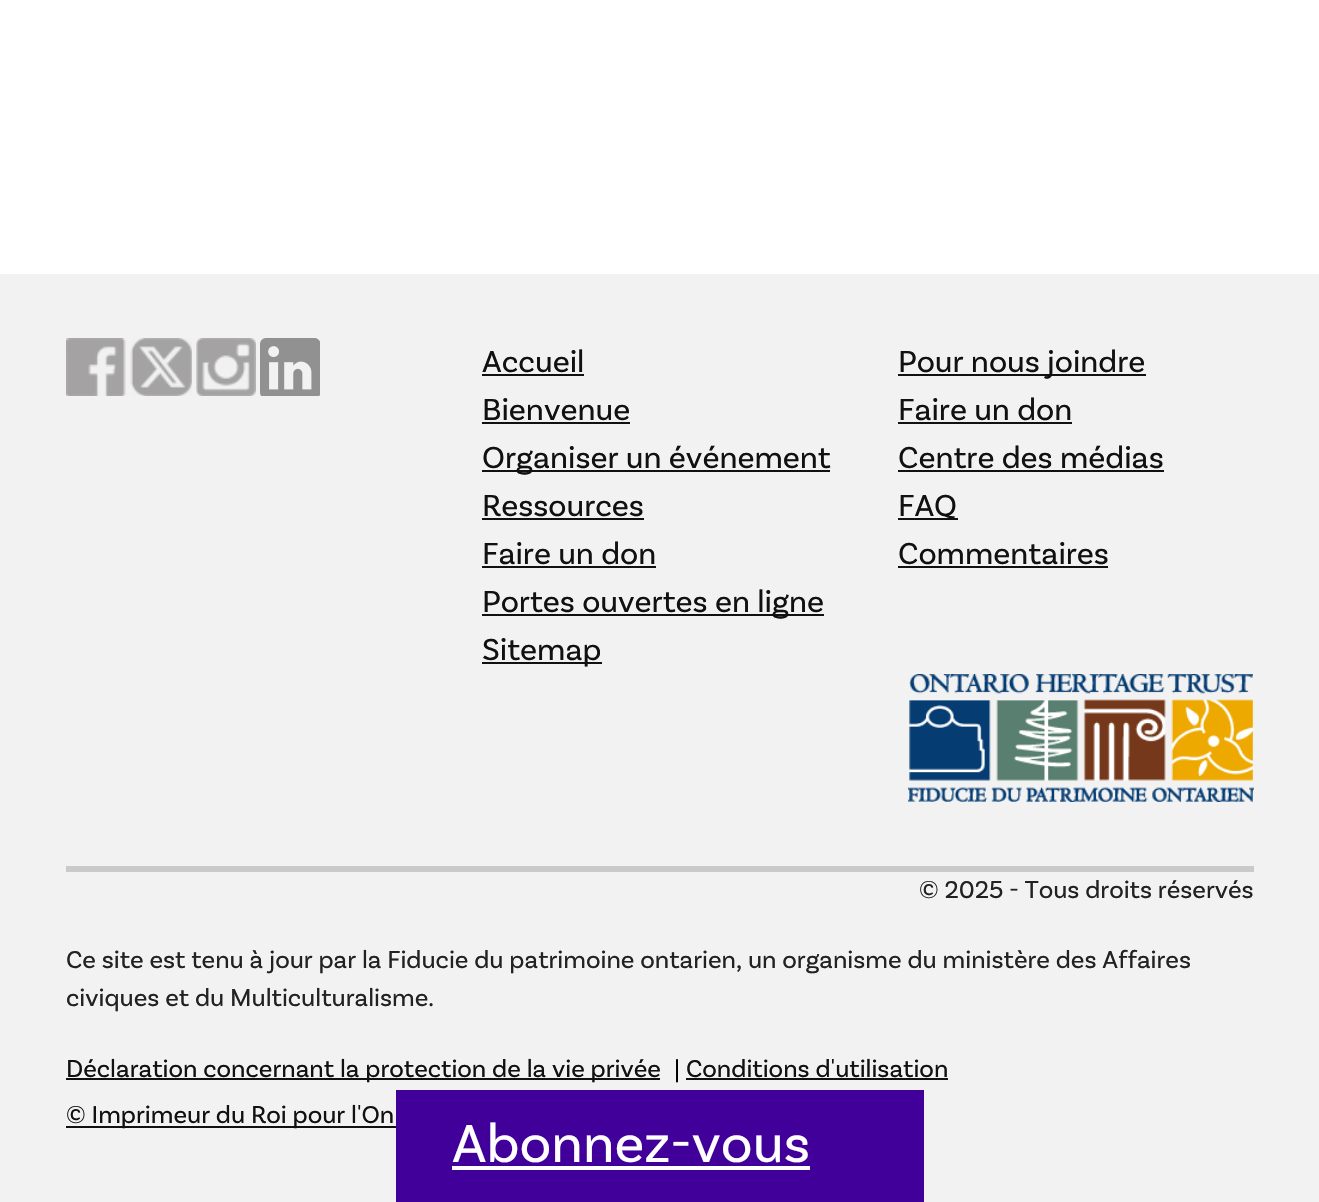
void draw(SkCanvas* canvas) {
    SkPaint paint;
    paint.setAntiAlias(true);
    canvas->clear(0xFFFFFFFF);
    paint.setColor(0xFFF2F2F2);
    canvas->drawRect(SkRect::MakeXYWH(0, 274, 1319, 928), paint);
    paint.setColor(0xFFCACACA);
    canvas->drawRect(SkRect::MakeXYWH(66, 866, 1188, 6), paint);
    canvas->drawImageRect(SkImages::DeferredFromEncodedData(SkData::MakeFromFileName("img1.png")), SkRect::MakeXYWH(66, 338, 60, 58), SkSamplingOptions());
    canvas->drawImageRect(SkImages::DeferredFromEncodedData(SkData::MakeFromFileName("img2.png")), SkRect::MakeXYWH(130, 338, 62, 58), SkSamplingOptions());
    canvas->drawImageRect(SkImages::DeferredFromEncodedData(SkData::MakeFromFileName("img3.png")), SkRect::MakeXYWH(196, 338, 60, 58), SkSamplingOptions());
    canvas->drawImageRect(SkImages::DeferredFromEncodedData(SkData::MakeFromFileName("img4.png")), SkRect::MakeXYWH(260, 338, 60, 58), SkSamplingOptions());
    SkFont font1(fontMgr->matchFamilyStyle("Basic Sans", SkFontStyle::Normal()), 32);
    font1.setSubpixel(true);
    paint.setColor(0xFF111111);
    canvas->drawString("Accueil", 482, 372, font1, paint);
    canvas->drawRect(SkRect::MakeXYWH(482, 374, 102, 2), paint);
    canvas->drawString("Bienvenue", 482, 420, font1, paint);
    canvas->drawRect(SkRect::MakeXYWH(482, 422, 148, 2), paint);
    canvas->drawRect(SkRect::MakeXYWH(482, 470, 348, 2), paint);
    canvas->drawString("Organiser un événement", 482, 468, font1, paint);
    canvas->drawString("Ressources", 482, 516, font1, paint);
    canvas->drawRect(SkRect::MakeXYWH(482, 518, 162, 2), paint);
    canvas->drawString("Faire un don", 482, 564, font1, paint);
    canvas->drawRect(SkRect::MakeXYWH(482, 566, 174, 2), paint);
    canvas->drawRect(SkRect::MakeXYWH(482, 614, 342, 2), paint);
    canvas->drawString("Portes ouvertes en ligne", 482, 612, font1, paint);
    canvas->drawRect(SkRect::MakeXYWH(482, 662, 120, 2), paint);
    canvas->drawString("Sitemap", 482, 660, font1, paint);
    canvas->drawRect(SkRect::MakeXYWH(898, 374, 248, 2), paint);
    canvas->drawString("Pour nous joindre", 898, 372, font1, paint);
    canvas->drawString("Faire un don", 898, 420, font1, paint);
    canvas->drawRect(SkRect::MakeXYWH(898, 422, 174, 2), paint);
    canvas->drawString("Centre des médias", 898, 468, font1, paint);
    canvas->drawRect(SkRect::MakeXYWH(898, 470, 266, 2), paint);
    canvas->drawRect(SkRect::MakeXYWH(898, 518, 60, 2), paint);
    canvas->drawString("FAQ", 898, 516, font1, paint);
    canvas->drawString("Commentaires", 898, 564, font1, paint);
    canvas->drawRect(SkRect::MakeXYWH(898, 566, 210, 2), paint);
    canvas->drawImageRect(SkImages::DeferredFromEncodedData(SkData::MakeFromFileName("img5.png")), SkRect::MakeXYWH(908, 674, 346, 128), SkSamplingOptions());
    SkFont font2(fontMgr->matchFamilyStyle("Basic Sans", SkFontStyle::Normal()), 25.6f);
    font2.setSubpixel(true);
    paint.setColor(0xFF222222);
    canvas->drawString("© 2025 - Tous droits réservés", 919, 898, font2, paint);
    canvas->drawString("Ce site est tenu à jour par la Fiducie du patrimoine ontarien, un organisme du ministère des Affaires", 66, 968, font2, paint);
    canvas->drawString("civiques et du Multiculturalisme.", 66, 1006, font2, paint);
    paint.setColor(0xFF111111);
    canvas->drawRect(SkRect::MakeXYWH(66, 1078, 594, 2), paint);
    canvas->drawString("Déclaration concernant la protection de la vie privée", 66, 1077, font2, paint);
    paint.setColor(0xFF000000);
    canvas->drawString("|", 674, 1077, font2, paint);
    paint.setColor(0xFF111111);
    canvas->drawString("Conditions d'utilisation", 686, 1077, font2, paint);
    canvas->drawRect(SkRect::MakeXYWH(686, 1078, 262, 2), paint);
    canvas->drawRect(SkRect::MakeXYWH(66, 1126, 330, 2), paint);
    canvas->drawString("© Imprimeur du Roi pour l'On", 66, 1123, font2, paint);
    paint.setColor(0xFF410099);
    canvas->drawRect(SkRect::MakeXYWH(396, 1090, 528, 112), paint);
    SkFont font3(fontMgr->matchFamilyStyle("Basic Sans", SkFontStyle::Normal()), 56);
    font3.setSubpixel(true);
    paint.setColor(0xFFFFFFFF);
    canvas->drawString("Abonnez-vous", 452, 1162, font3, paint);
    canvas->drawRect(SkRect::MakeXYWH(452, 1166, 358, 4), paint);
}
